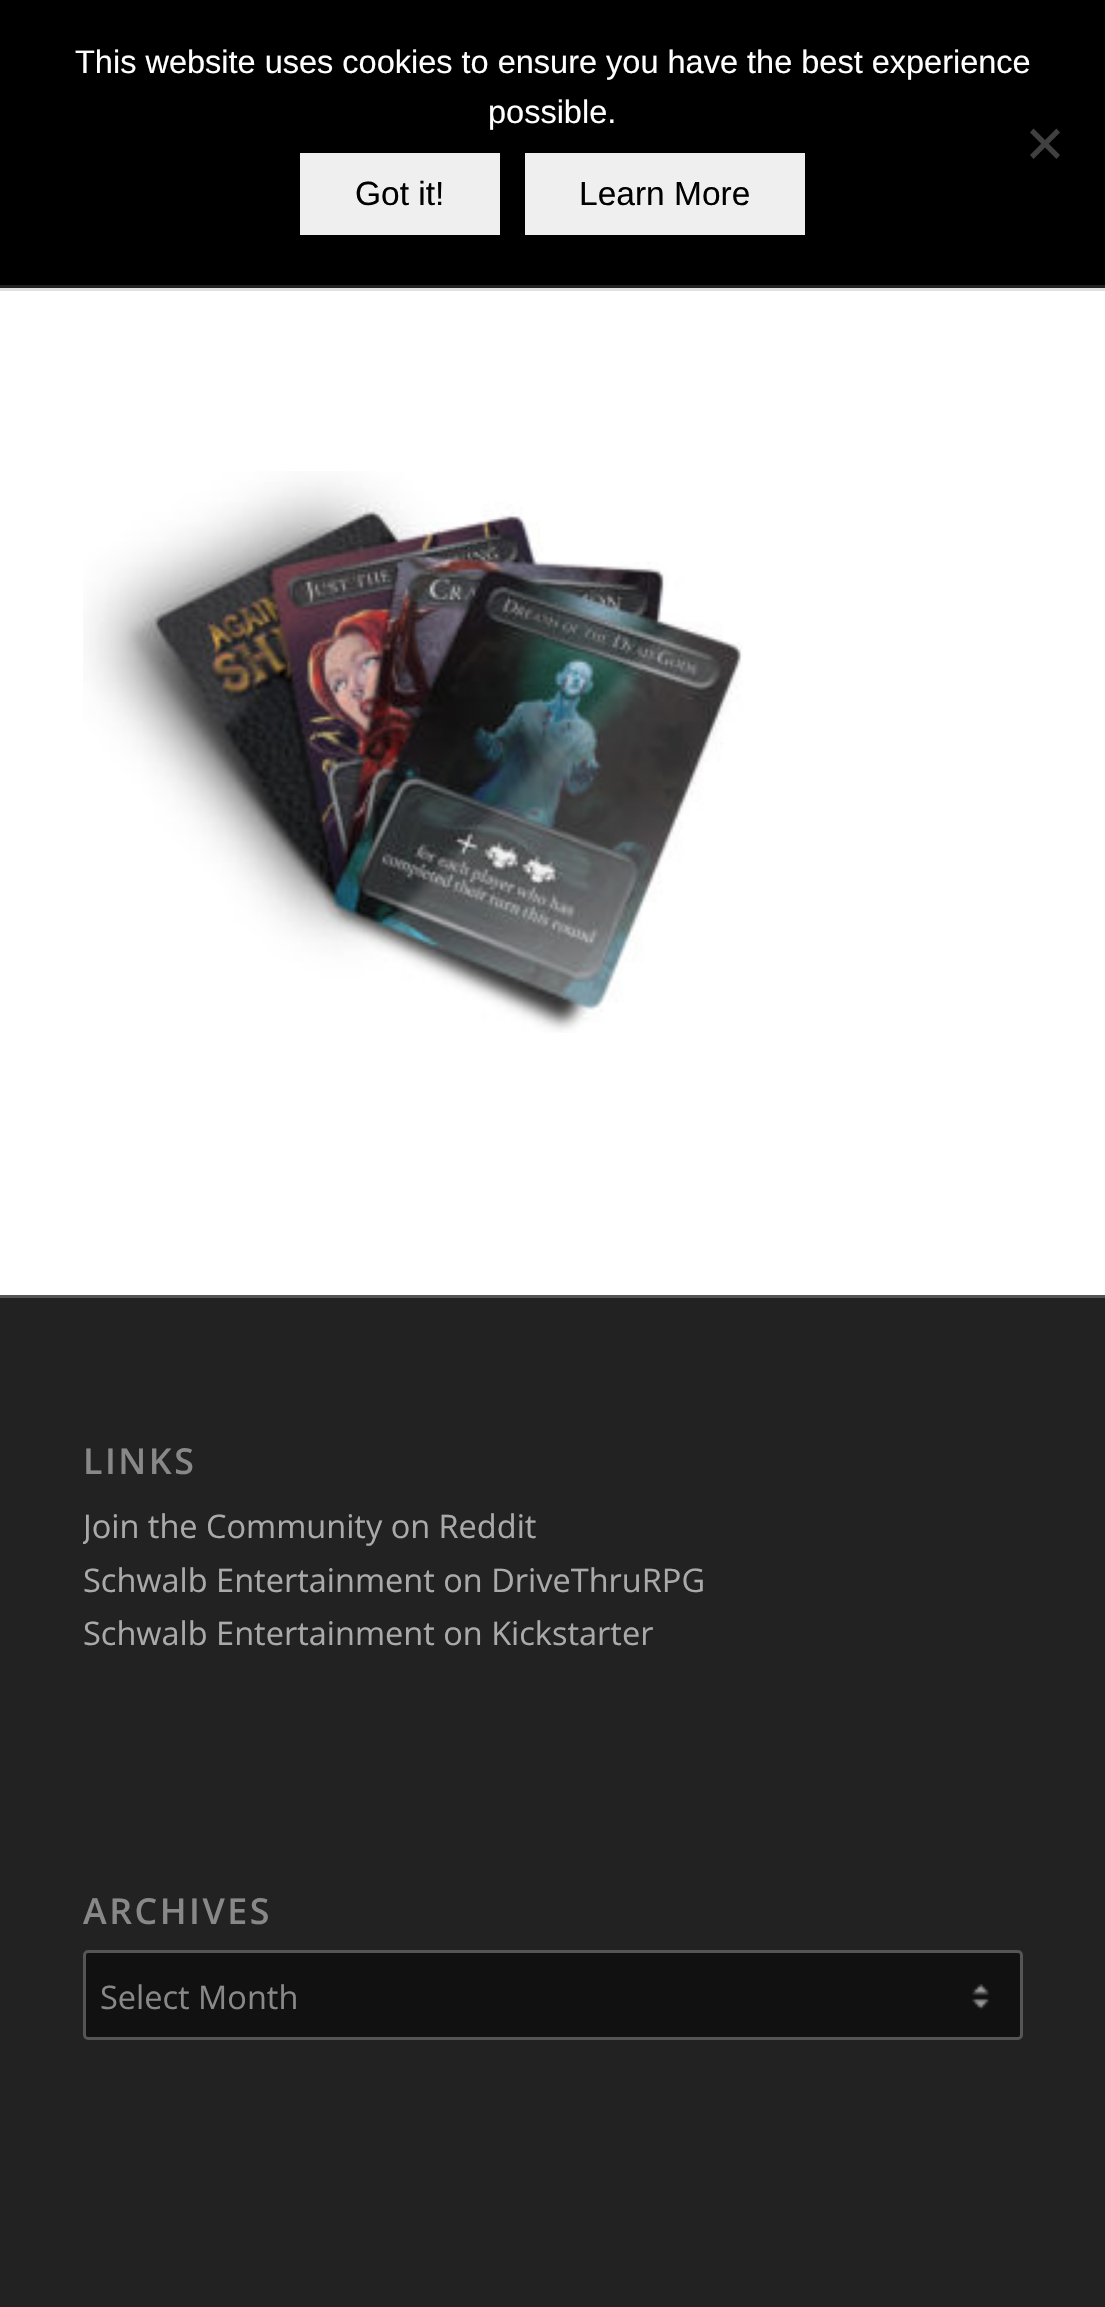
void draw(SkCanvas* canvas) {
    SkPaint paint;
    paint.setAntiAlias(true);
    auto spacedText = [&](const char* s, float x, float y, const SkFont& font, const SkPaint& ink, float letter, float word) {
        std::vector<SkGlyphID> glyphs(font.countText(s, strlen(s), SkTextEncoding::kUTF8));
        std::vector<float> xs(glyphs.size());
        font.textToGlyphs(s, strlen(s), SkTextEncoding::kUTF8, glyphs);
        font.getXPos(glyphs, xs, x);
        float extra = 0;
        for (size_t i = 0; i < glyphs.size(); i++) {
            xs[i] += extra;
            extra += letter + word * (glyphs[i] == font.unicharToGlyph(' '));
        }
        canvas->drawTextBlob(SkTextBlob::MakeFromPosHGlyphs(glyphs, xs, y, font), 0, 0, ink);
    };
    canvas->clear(0xFF222222);
    paint.setColor(0xFF000000);
    canvas->drawRect(SkRect::MakeXYWH(0, 0, 1105, 285), paint);
    SkFont font1(fontMgr->matchFamilyStyle("Liberation Sans", SkFontStyle::Normal()), 32.5f);
    font1.setSubpixel(true);
    paint.setColor(0xFFFFFFFF);
    canvas->drawString("This website uses cookies to ensure you have the best experience", 75, 73, font1, paint);
    canvas->drawString("possible.", 488, 123, font1, paint);
    paint.setColor(0xFF404040);
    canvas->drawPath(SkPathBuilder().moveTo(1056.5f, 128.5f).lineTo(1060, 132.5f).lineTo(1033.5f, 159).lineTo(1030, 155).close().detach(), paint);
    canvas->drawPath(SkPathBuilder().moveTo(1030, 132.5f).lineTo(1033.5f, 128.5f).lineTo(1060, 155).lineTo(1056.5f, 159).close().detach(), paint);
    paint.setColor(0xFFEFEFEF);
    canvas->drawRect(SkRect::MakeXYWH(300, 153, 200, 82), paint);
    SkFont font2(fontMgr->matchFamilyStyle("Liberation Sans", SkFontStyle::Normal()), 33.5f);
    font2.setSubpixel(true);
    paint.setColor(0xFF000000);
    canvas->drawString("Got it!", 355, 205, font2, paint);
    paint.setColor(0xFFEFEFEF);
    canvas->drawRect(SkRect::MakeXYWH(525, 153, 280, 82), paint);
    paint.setColor(0xFF000000);
    canvas->drawString("Learn More", 579, 205, font2, paint);
    paint.setColor(0xFFFFFFFF);
    canvas->drawRect(SkRect::MakeXYWH(0, 291, 1105, 1004), paint);
    paint.setColor(0xFFE1E1E1);
    canvas->drawRect(SkRect::MakeXYWH(0, 288, 1105, 3), paint);
    canvas->drawImageRect(SkImages::DeferredFromEncodedData(SkData::MakeFromFileName("img1.png")), SkRect::MakeXYWH(83, 471, 660, 562), SkSamplingOptions());
    paint.setColor(0xFF555555);
    canvas->drawRect(SkRect::MakeXYWH(0, 1295, 1105, 3), paint);
    SkFont font3(fontMgr->matchFamilyStyle("Open Sans", SkFontStyle(600, SkFontStyle::kNormal_Width, SkFontStyle::kUpright_Slant)), 35.75f);
    font3.setSubpixel(true);
    paint.setColor(0xFF888888);
    spacedText("LINKS", 83, 1474, font3, paint, 2.5f, 0);
    canvas->save();
    canvas->clipRect(SkRect::MakeXYWH(83, 1410, 940, 253));
    SkFont font4(fontMgr->matchFamilyStyle("Open Sans", SkFontStyle::Normal()), 32.5f);
    font4.setSubpixel(true);
    paint.setColor(0xFFAAAAAA);
    canvas->drawString("Join the Community on Reddit", 83, 1538, font4, paint);
    canvas->restore();
    canvas->drawString("Schwalb Entertainment on DriveThruRPG", 83, 1592, font4, paint);
    canvas->drawString("Schwalb Entertainment on Kickstarter", 83, 1645, font4, paint);
    paint.setColor(0xFF888888);
    spacedText("ARCHIVES", 83, 1924, font3, paint, 2.5f, 0);
    paint.setColor(0xFF111111);
    canvas->drawRoundRect(SkRect::MakeXYWH(83, 1950, 940, 90), 5, 5, paint);
    canvas->drawImageRect(SkImages::DeferredFromEncodedData(SkData::MakeFromFileName("img2.png")), SkRect::MakeXYWH(972, 1984, 18, 26), SkSamplingOptions());
    paint.setStyle(SkPaint::kStroke_Style);
    paint.setStrokeWidth(3);
    paint.setColor(0xFF555555);
    canvas->drawRoundRect(SkRect::MakeXYWH(84.5f, 1951.5f, 937, 87), 3.5f, 3.5f, paint);
    paint.setStyle(SkPaint::kFill_Style);
    paint.setColor(0xFF888888);
    canvas->drawString("Select Month", 100, 2009, font4, paint);
}
